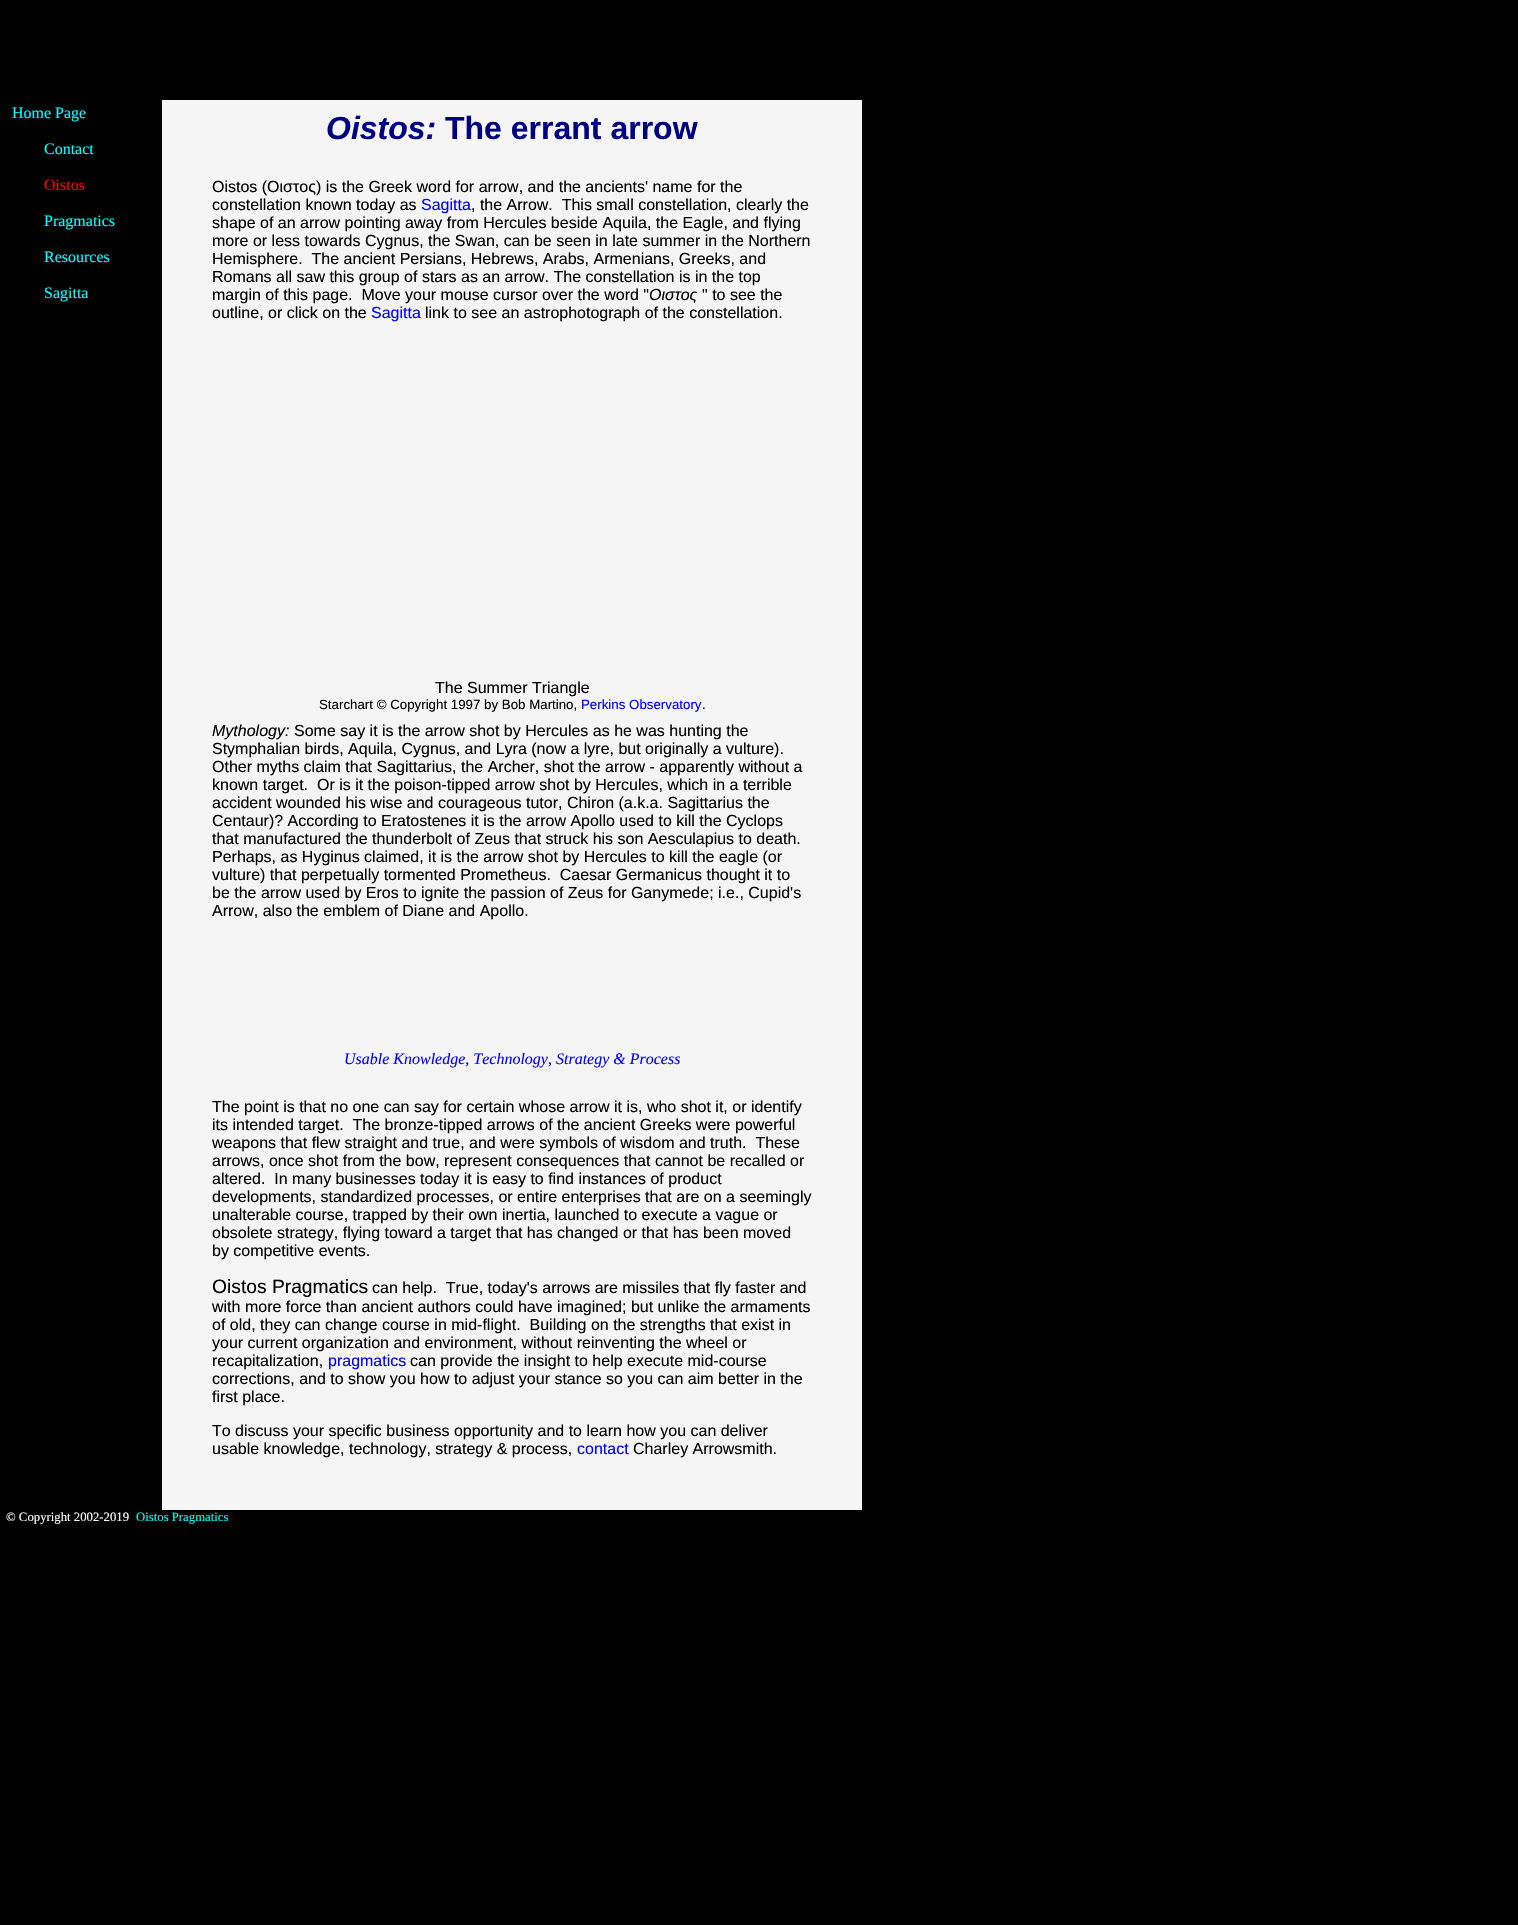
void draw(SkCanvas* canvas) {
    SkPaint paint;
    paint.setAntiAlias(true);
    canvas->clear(0xFF000000);
    SkFont font1(fontMgr->matchFamilyStyle("Liberation Serif", SkFontStyle::Normal()), 16);
    font1.setSubpixel(true);
    paint.setColor(0xFF00FFFF);
    canvas->drawString("Home Page", 12, 118, font1, paint);
    canvas->drawString("Contact", 44, 154, font1, paint);
    paint.setColor(0xFFFF0000);
    canvas->drawString("Oistos", 44, 190, font1, paint);
    paint.setColor(0xFF00FFFF);
    canvas->drawString("Pragmatics", 44, 226, font1, paint);
    canvas->drawString("Resources", 44, 262, font1, paint);
    canvas->drawString("Sagitta", 44, 298, font1, paint);
    paint.setColor(0xFFF5F5F5);
    canvas->drawRect(SkRect::MakeXYWH(162, 100, 700, 1410), paint);
    SkFont font2(fontMgr->matchFamilyStyle("Liberation Sans", SkFontStyle::BoldItalic()), 32);
    font2.setSubpixel(true);
    paint.setColor(0xFF000080);
    canvas->drawString("Oistos:", 326, 139, font2, paint);
    SkFont font3(fontMgr->matchFamilyStyle("Liberation Sans", SkFontStyle::Bold()), 32);
    font3.setSubpixel(true);
    canvas->drawString("The errant arrow", 445, 139, font3, paint);
    SkFont font4(fontMgr->matchFamilyStyle("Liberation Sans", SkFontStyle::Normal()), 16);
    font4.setSubpixel(true);
    paint.setColor(0xFF000000);
    canvas->drawString("Oistos (Οιστος) is the Greek word for arrow, and the ancients' name for the", 212, 192, font4, paint);
    canvas->drawString("constellation known today as", 212, 210, font4, paint);
    paint.setColor(0xFF0000FF);
    canvas->drawString("Sagitta", 421, 210, font4, paint);
    paint.setColor(0xFF000000);
    canvas->drawString(", the Arrow.  This small constellation, clearly the", 471, 210, font4, paint);
    canvas->drawString("shape of an arrow pointing away from Hercules beside Aquila, the Eagle, and flying", 212, 228, font4, paint);
    canvas->drawString("more or less towards Cygnus, the Swan, can be seen in late summer in the Northern", 212, 246, font4, paint);
    canvas->drawString("Hemisphere.  The ancient Persians, Hebrews, Arabs, Armenians, Greeks, and", 212, 264, font4, paint);
    canvas->drawString("Romans all saw this group of stars as an arrow. The constellation is in the top", 212, 282, font4, paint);
    canvas->drawString("margin of this page.  Move your mouse cursor over the word \"", 212, 300, font4, paint);
    SkFont font5(fontMgr->matchFamilyStyle("Liberation Sans", SkFontStyle::Italic()), 16);
    font5.setSubpixel(true);
    canvas->drawString("Οιστος", 649, 300, font5, paint);
    canvas->drawString("\" to see the", 702, 300, font4, paint);
    canvas->drawString("outline, or click on the", 212, 318, font4, paint);
    paint.setColor(0xFF0000FF);
    canvas->drawString("Sagitta", 371, 318, font4, paint);
    paint.setColor(0xFF000000);
    canvas->drawString("link to see an astrophotograph of the constellation.", 425, 318, font4, paint);
    canvas->drawString("The Summer Triangle", 435, 693, font4, paint);
    SkFont font6(fontMgr->matchFamilyStyle("Liberation Sans", SkFontStyle::Normal()), 13.3f);
    font6.setSubpixel(true);
    canvas->drawString("Starchart © Copyright 1997 by Bob Martino,", 319, 709, font6, paint);
    paint.setColor(0xFF0000FF);
    canvas->drawString("Perkins Observatory", 581, 709, font6, paint);
    paint.setColor(0xFF000000);
    canvas->drawString(".", 702, 709, font6, paint);
    canvas->drawString("Mythology:", 212, 736, font5, paint);
    canvas->drawString("Some say it is the arrow shot by Hercules as he was hunting the", 294, 736, font4, paint);
    canvas->drawString("Stymphalian birds, Aquila, Cygnus, and Lyra (now a lyre, but originally a vulture).", 212, 754, font4, paint);
    canvas->drawString("Other myths claim that Sagittarius, the Archer, shot the arrow - apparently without a", 212, 772, font4, paint);
    canvas->drawString("known target.  Or is it the poison-tipped arrow shot by Hercules, which in a terrible", 212, 790, font4, paint);
    canvas->drawString("accident wounded his wise and courageous tutor, Chiron (a.k.a. Sagittarius the", 212, 808, font4, paint);
    canvas->drawString("Centaur)? According to Eratostenes it is the arrow Apollo used to kill the Cyclops", 212, 826, font4, paint);
    canvas->drawString("that manufactured the thunderbolt of Zeus that struck his son Aesculapius to death.", 212, 844, font4, paint);
    canvas->drawString("Perhaps, as Hyginus claimed, it is the arrow shot by Hercules to kill the eagle (or", 212, 862, font4, paint);
    canvas->drawString("vulture) that perpetually tormented Prometheus.  Caesar Germanicus thought it to", 212, 880, font4, paint);
    canvas->drawString("be the arrow used by Eros to ignite the passion of Zeus for Ganymede; i.e., Cupid's", 212, 898, font4, paint);
    canvas->drawString("Arrow, also the emblem of Diane and Apollo.", 212, 916, font4, paint);
    SkFont font7(fontMgr->matchFamilyStyle("Liberation Serif", SkFontStyle::Italic()), 16);
    font7.setSubpixel(true);
    paint.setColor(0xFF0000FF);
    canvas->drawString("Usable Knowledge, Technology, Strategy & Process", 344, 1064, font7, paint);
    paint.setColor(0xFF000000);
    canvas->drawString("The point is that no one can say for certain whose arrow it is, who shot it, or identify", 212, 1112, font4, paint);
    canvas->drawString("its intended target.  The bronze-tipped arrows of the ancient Greeks were powerful", 212, 1130, font4, paint);
    canvas->drawString("weapons that flew straight and true, and were symbols of wisdom and truth.  These", 212, 1148, font4, paint);
    canvas->drawString("arrows, once shot from the bow, represent consequences that cannot be recalled or", 212, 1166, font4, paint);
    canvas->drawString("altered.  In many businesses today it is easy to find instances of product", 212, 1184, font4, paint);
    canvas->drawString("developments, standardized processes, or entire enterprises that are on a seemingly", 212, 1202, font4, paint);
    canvas->drawString("unalterable course, trapped by their own inertia, launched to execute a vague or", 212, 1220, font4, paint);
    canvas->drawString("obsolete strategy, flying toward a target that has changed or that has been moved", 212, 1238, font4, paint);
    canvas->drawString("by competitive events.", 212, 1256, font4, paint);
    SkFont font8(fontMgr->matchFamilyStyle("Liberation Sans", SkFontStyle::Normal()), 19.25f);
    font8.setSubpixel(true);
    canvas->drawString("Oistos Pragmatics", 212, 1293, font8, paint);
    canvas->drawString("can help.  True, today's arrows are missiles that fly faster and", 372, 1293, font4, paint);
    canvas->drawString("with more force than ancient authors could have imagined; but unlike the armaments", 212, 1312, font4, paint);
    canvas->drawString("of old, they can change course in mid-flight.  Building on the strengths that exist in", 212, 1330, font4, paint);
    canvas->drawString("your current organization and environment, without reinventing the wheel or", 212, 1348, font4, paint);
    canvas->drawString("recapitalization,", 212, 1366, font4, paint);
    paint.setColor(0xFF0000FF);
    canvas->drawString("pragmatics", 328, 1366, font4, paint);
    paint.setColor(0xFF000000);
    canvas->drawString("can provide the insight to help execute mid-course", 410, 1366, font4, paint);
    canvas->drawString("corrections, and to show you how to adjust your stance so you can aim better in the", 212, 1384, font4, paint);
    canvas->drawString("first place.", 212, 1402, font4, paint);
    canvas->drawString("To discuss your specific business opportunity and to learn how you can deliver", 212, 1436, font4, paint);
    canvas->drawString("usable knowledge, technology, strategy & process,", 212, 1454, font4, paint);
    paint.setColor(0xFF0000FF);
    canvas->drawString("contact", 577, 1454, font4, paint);
    paint.setColor(0xFF000000);
    canvas->drawString("Charley Arrowsmith.", 633, 1454, font4, paint);
    SkFont font9(fontMgr->matchFamilyStyle("Liberation Serif", SkFontStyle::Normal()), 12.75f);
    font9.setSubpixel(true);
    paint.setColor(0xFFFFFFFF);
    canvas->drawString("© Copyright 2002-2019", 6, 1521, font9, paint);
    paint.setColor(0xFF00FFFF);
    canvas->drawString("Oistos Pragmatics", 136, 1521, font9, paint);
}
